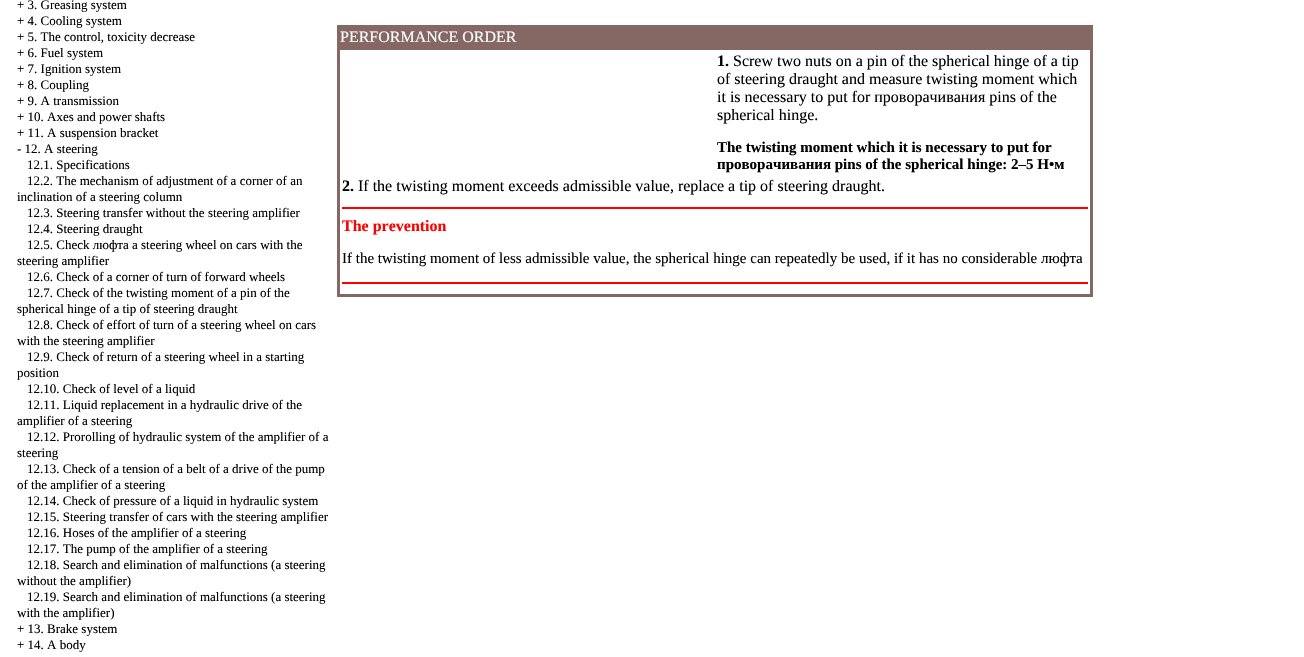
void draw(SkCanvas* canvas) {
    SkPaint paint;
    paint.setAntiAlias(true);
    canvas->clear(0xFFFFFFFF);
    SkFont font1(fontMgr->matchFamilyStyle("Liberation Serif", SkFontStyle::Normal()), 13);
    font1.setSubpixel(true);
    paint.setColor(0xFF000000);
    canvas->drawString("+ 3. Greasing system", 17, 9, font1, paint);
    canvas->drawString("+ 4. Cooling system", 17, 25, font1, paint);
    canvas->drawString("+ 5. The control, toxicity decrease", 17, 41, font1, paint);
    canvas->drawString("+ 6. Fuel system", 17, 57, font1, paint);
    canvas->drawString("+ 7. Ignition system", 17, 73, font1, paint);
    canvas->drawString("+ 8. Coupling", 17, 89, font1, paint);
    canvas->drawString("+ 9. A transmission", 17, 105, font1, paint);
    canvas->drawString("+ 10. Axes and power shafts", 17, 121, font1, paint);
    canvas->drawString("+ 11. A suspension bracket", 17, 137, font1, paint);
    canvas->drawString("- 12. A steering", 17, 153, font1, paint);
    canvas->drawString("12.1. Specifications", 27, 169, font1, paint);
    canvas->drawString("12.2. The mechanism of adjustment of a corner of an", 27, 185, font1, paint);
    canvas->drawString("inclination of a steering column", 17, 201, font1, paint);
    canvas->drawString("12.3. Steering transfer without the steering amplifier", 27, 217, font1, paint);
    canvas->drawString("12.4. Steering draught", 27, 233, font1, paint);
    canvas->drawString("12.5. Check люфта a steering wheel on cars with the", 27, 249, font1, paint);
    canvas->drawString("steering amplifier", 17, 265, font1, paint);
    canvas->drawString("12.6. Check of a corner of turn of forward wheels", 27, 281, font1, paint);
    canvas->drawString("12.7. Check of the twisting moment of a pin of the", 27, 297, font1, paint);
    canvas->drawString("spherical hinge of a tip of steering draught", 17, 313, font1, paint);
    canvas->drawString("12.8. Check of effort of turn of a steering wheel on cars", 27, 329, font1, paint);
    canvas->drawString("with the steering amplifier", 17, 345, font1, paint);
    canvas->drawString("12.9. Check of return of a steering wheel in a starting", 27, 361, font1, paint);
    canvas->drawString("position", 17, 377, font1, paint);
    canvas->drawString("12.10. Check of level of a liquid", 27, 393, font1, paint);
    canvas->drawString("12.11. Liquid replacement in a hydraulic drive of the", 27, 409, font1, paint);
    canvas->drawString("amplifier of a steering", 17, 425, font1, paint);
    canvas->drawString("12.12. Prorolling of hydraulic system of the amplifier of a", 27, 441, font1, paint);
    canvas->drawString("steering", 17, 457, font1, paint);
    canvas->drawString("12.13. Check of a tension of a belt of a drive of the pump", 27, 473, font1, paint);
    canvas->drawString("of the amplifier of a steering", 17, 489, font1, paint);
    canvas->drawString("12.14. Check of pressure of a liquid in hydraulic system", 27, 505, font1, paint);
    canvas->drawString("12.15. Steering transfer of cars with the steering amplifier", 27, 521, font1, paint);
    canvas->drawString("12.16. Hoses of the amplifier of a steering", 27, 537, font1, paint);
    canvas->drawString("12.17. The pump of the amplifier of a steering", 27, 553, font1, paint);
    canvas->drawString("12.18. Search and elimination of malfunctions (a steering", 27, 569, font1, paint);
    canvas->drawString("without the amplifier)", 17, 585, font1, paint);
    canvas->drawString("12.19. Search and elimination of malfunctions (a steering", 27, 601, font1, paint);
    canvas->drawString("with the amplifier)", 17, 617, font1, paint);
    canvas->drawString("+ 13. Brake system", 17, 633, font1, paint);
    canvas->drawString("+ 14. A body", 17, 649, font1, paint);
    paint.setColor(0xFF856763);
    canvas->drawRect(SkRect::MakeXYWH(337, 25, 756, 272), paint);
    SkFont font2(fontMgr->matchFamilyStyle("Liberation Serif", SkFontStyle::Normal()), 16);
    font2.setSubpixel(true);
    paint.setColor(0xFFFFFFFF);
    canvas->drawString("PERFORMANCE ORDER", 340, 42, font2, paint);
    canvas->drawRect(SkRect::MakeXYWH(340, 50, 750, 244), paint);
    SkFont font3(fontMgr->matchFamilyStyle("Liberation Serif", SkFontStyle::Bold()), 16);
    font3.setSubpixel(true);
    paint.setColor(0xFF000000);
    canvas->drawString("1.", 717, 66, font3, paint);
    canvas->drawString("Screw two nuts on a pin of the spherical hinge of a tip", 733, 66, font2, paint);
    canvas->drawString("of steering draught and measure twisting moment which", 717, 84, font2, paint);
    canvas->drawString("it is necessary to put for проворачивания pins of the", 717, 102, font2, paint);
    canvas->drawString("spherical hinge.", 717, 120, font2, paint);
    SkFont font4(fontMgr->matchFamilyStyle("Liberation Serif", SkFontStyle::Bold()), 15);
    font4.setSubpixel(true);
    canvas->drawString("The twisting moment which it is necessary to put for", 717, 152, font4, paint);
    canvas->drawString("проворачивания pins of the spherical hinge: 2–5 Н•м", 717, 169, font4, paint);
    canvas->drawString("2.", 342, 191, font3, paint);
    canvas->drawString("If the twisting moment exceeds admissible value, replace a tip of steering draught.", 358, 191, font2, paint);
    paint.setColor(0xFFFF0000);
    canvas->drawRect(SkRect::MakeXYWH(342, 207, 746, 2), paint);
    canvas->drawString("The prevention", 342, 231, font3, paint);
    SkFont font5(fontMgr->matchFamilyStyle("Liberation Serif", SkFontStyle::Normal()), 15);
    font5.setSubpixel(true);
    paint.setColor(0xFF000000);
    canvas->drawString("If the twisting moment of less admissible value, the spherical hinge can repeatedly be used, if it has no considerable люфта", 342, 263, font5, paint);
    paint.setColor(0xFFFF0000);
    canvas->drawRect(SkRect::MakeXYWH(342, 282, 746, 2), paint);
}
